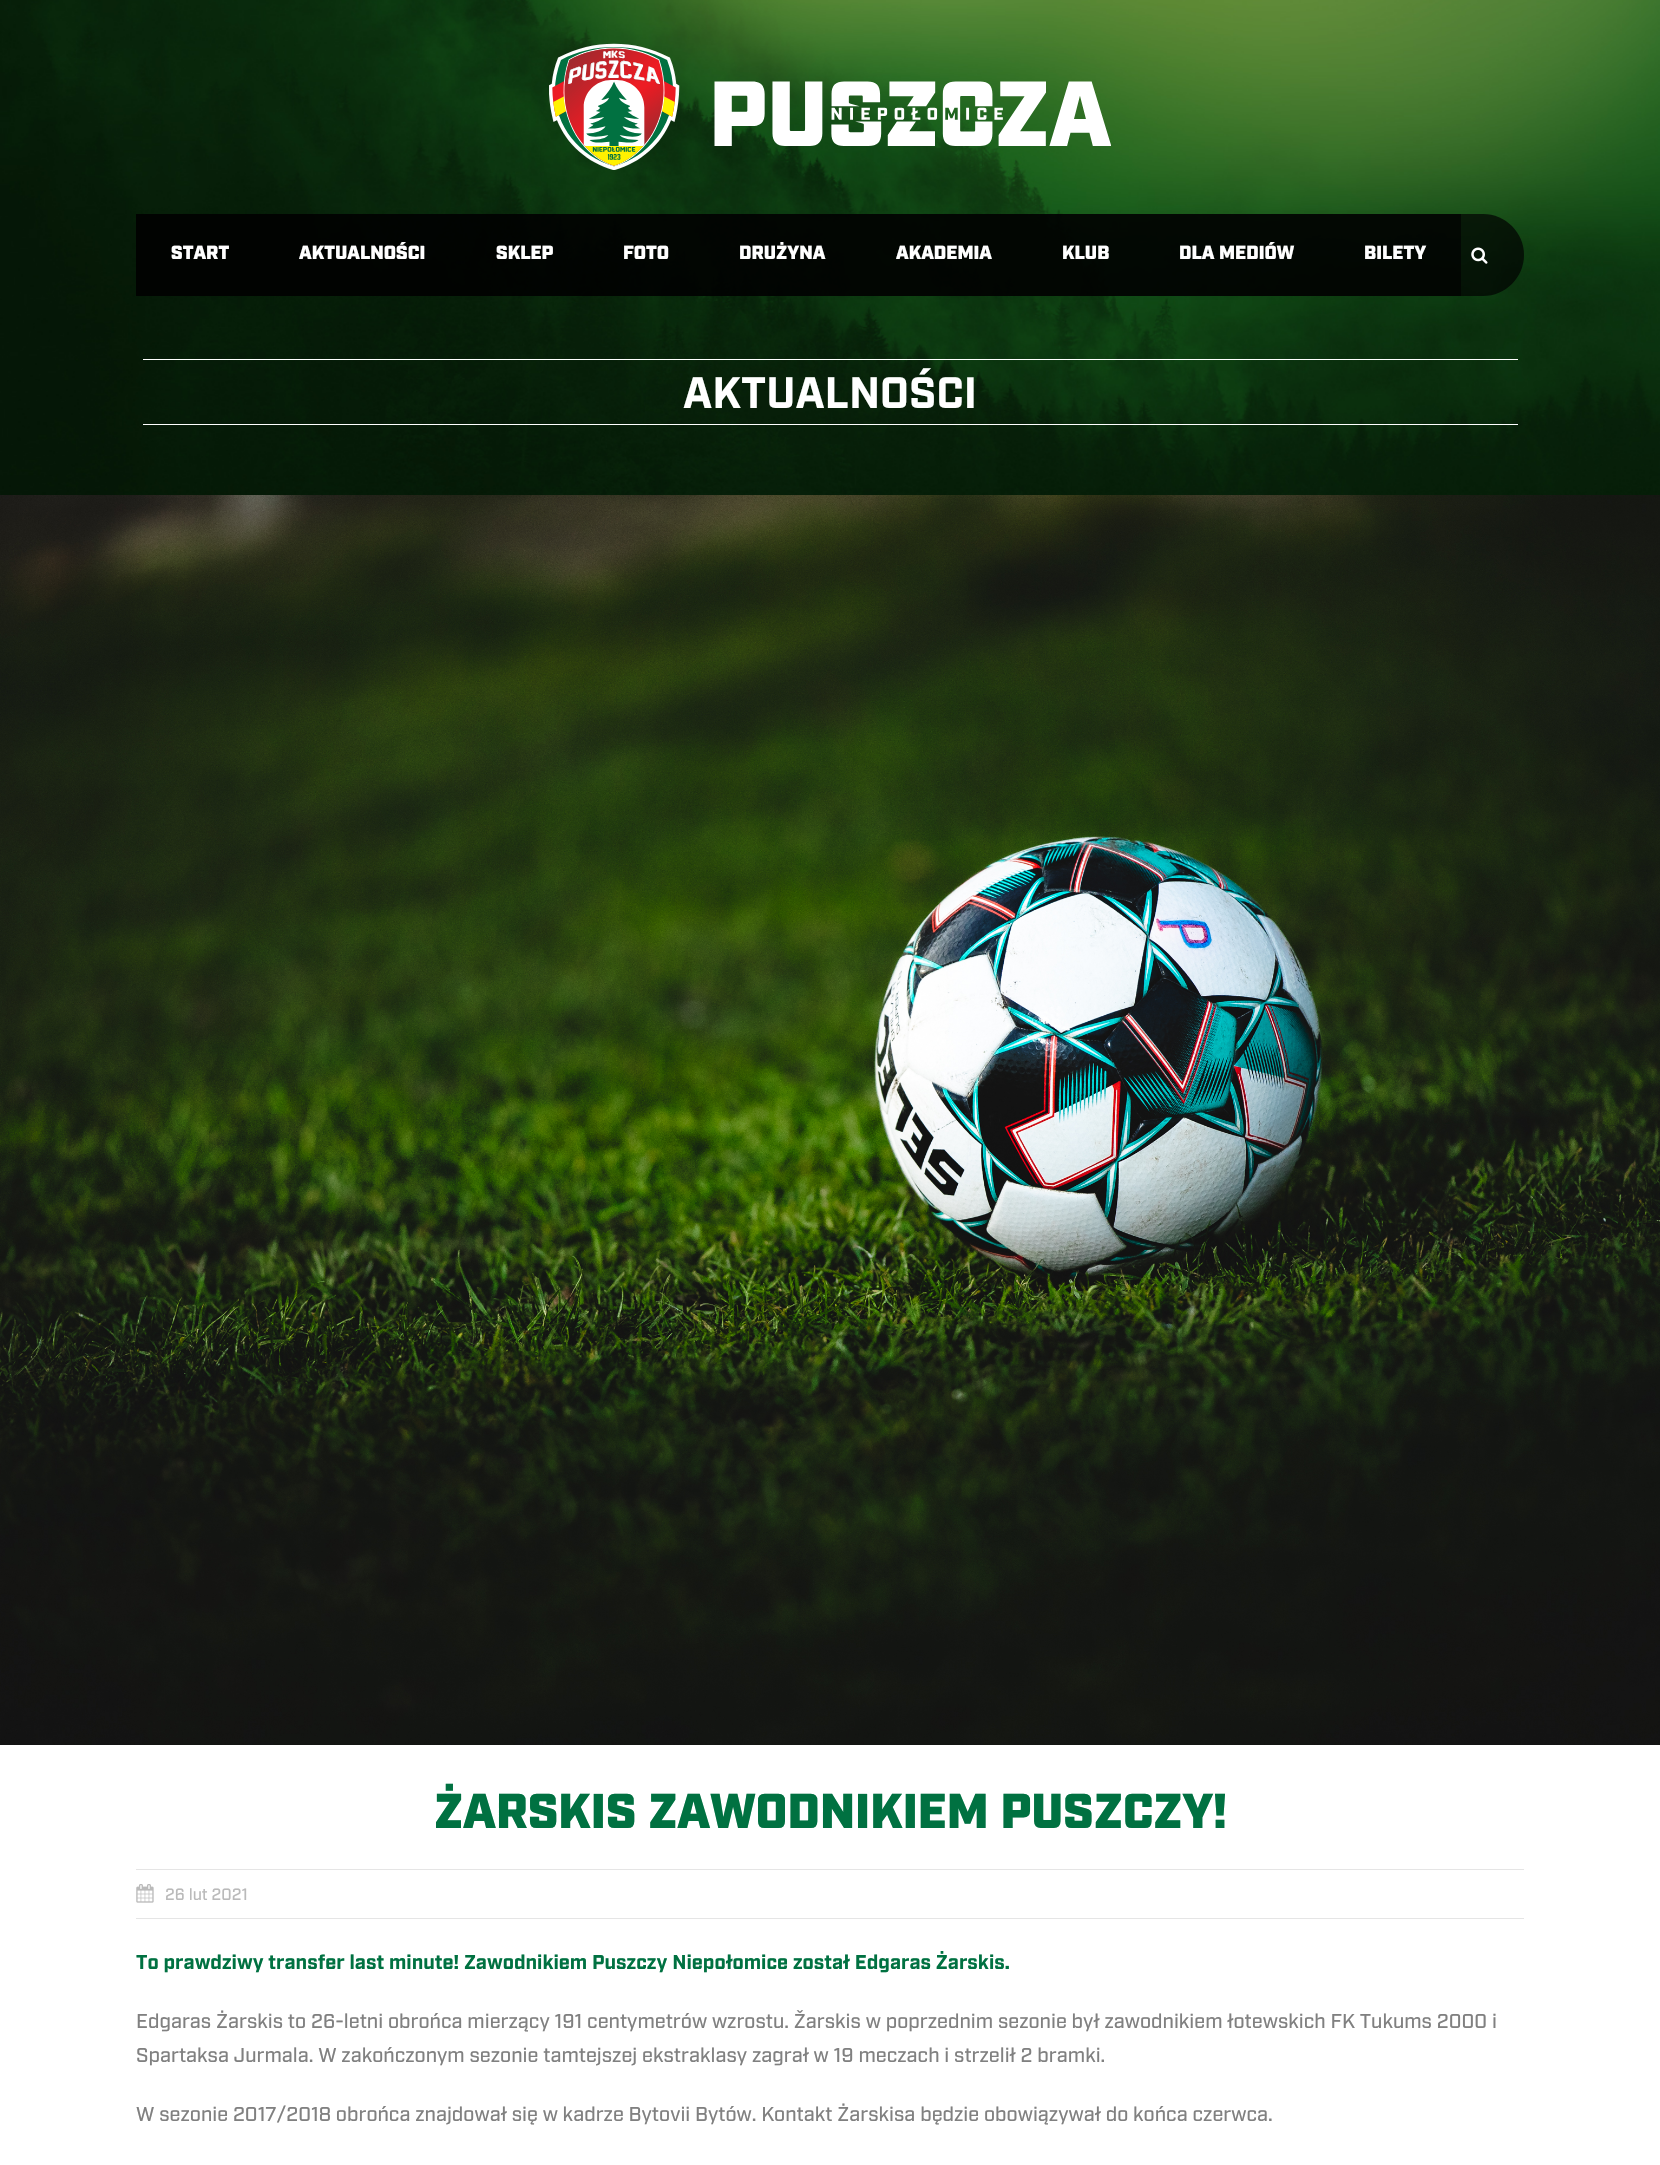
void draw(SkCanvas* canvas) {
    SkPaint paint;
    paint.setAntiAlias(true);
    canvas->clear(0xFFFFFFFF);
    canvas->drawImageRect(SkImages::DeferredFromEncodedData(SkData::MakeFromFileName("img1.png")), SkRect::MakeXYWH(0, 0, 1660, 495), SkSamplingOptions());
    canvas->drawImageRect(SkImages::DeferredFromEncodedData(SkData::MakeFromFileName("img2.png")), SkRect::MakeXYWH(549, 43, 562, 127), SkSamplingOptions());
    paint.setColor(0xB3000000);
    canvas->drawPath(SkPathBuilder().moveTo(136, 214).lineTo(1483, 214).cubicTo(1505.5f, 214, 1524, 232.5f, 1524, 255).cubicTo(1524, 277.5f, 1505.5f, 296, 1483, 296).lineTo(136, 296).close().detach(), paint);
    paint.setColor(0xFF010301);
    canvas->drawRect(SkRect::MakeXYWH(136, 214, 129, 82), paint);
    SkFont font1(fontMgr->matchFamilyStyle("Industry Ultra", SkFontStyle(900, SkFontStyle::kNormal_Width, SkFontStyle::kUpright_Slant)), 18.75f);
    font1.setSubpixel(true);
    paint.setColor(0xFFFFFFFF);
    canvas->drawString("START", 171, 259, font1, paint);
    paint.setColor(0xB3000000);
    canvas->drawRect(SkRect::MakeXYWH(265, 214, 196, 82), paint);
    paint.setColor(0xFFFFFFFF);
    canvas->drawString("AKTUALNOŚCI", 299, 259, font1, paint);
    paint.setColor(0xB3000000);
    canvas->drawRect(SkRect::MakeXYWH(461, 214, 127, 82), paint);
    paint.setColor(0xFFFFFFFF);
    canvas->drawString("SKLEP", 496, 259, font1, paint);
    paint.setColor(0xB3000000);
    canvas->drawRect(SkRect::MakeXYWH(588, 214, 116, 82), paint);
    paint.setColor(0xFFFFFFFF);
    canvas->drawString("FOTO", 623, 259, font1, paint);
    paint.setColor(0xB3000000);
    canvas->drawRect(SkRect::MakeXYWH(704, 214, 157, 82), paint);
    paint.setColor(0xFFFFFFFF);
    canvas->drawString("DRUŻYNA", 739, 259, font1, paint);
    paint.setColor(0xB3000000);
    canvas->drawRect(SkRect::MakeXYWH(861, 214, 165, 82), paint);
    paint.setColor(0xFFFFFFFF);
    canvas->drawString("AKADEMIA", 896, 259, font1, paint);
    paint.setColor(0xB3000000);
    canvas->drawRect(SkRect::MakeXYWH(1026, 214, 118, 82), paint);
    paint.setColor(0xFFFFFFFF);
    canvas->drawString("KLUB", 1062, 259, font1, paint);
    paint.setColor(0xB3000000);
    canvas->drawRect(SkRect::MakeXYWH(1144, 214, 185, 82), paint);
    paint.setColor(0xFFFFFFFF);
    canvas->drawString("DLA MEDIÓW", 1179, 259, font1, paint);
    paint.setColor(0xB3000000);
    canvas->drawRect(SkRect::MakeXYWH(1329, 214, 132, 82), paint);
    paint.setColor(0xFFFFFFFF);
    canvas->drawString("BILETY", 1364, 259, font1, paint);
    canvas->drawImageRect(SkImages::DeferredFromEncodedData(SkData::MakeFromFileName("img3.png")), SkRect::MakeXYWH(1471, 247, 17, 17), SkSamplingOptions());
    canvas->drawRect(SkRect::MakeXYWH(143, 359, 1375, 1), paint);
    SkFont font2(fontMgr->matchFamilyStyle("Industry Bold", SkFontStyle::Bold()), 43.75f);
    font2.setSubpixel(true);
    canvas->drawString("AKTUALNOŚCI", 683, 408, font2, paint);
    canvas->drawRect(SkRect::MakeXYWH(143, 424, 1375, 1), paint);
    canvas->drawImageRect(SkImages::DeferredFromEncodedData(SkData::MakeFromFileName("img4.png")), SkRect::MakeXYWH(0, 495, 1660, 1250), SkSamplingOptions());
    SkFont font3(fontMgr->matchFamilyStyle("Industry Ultra", SkFontStyle(900, SkFontStyle::kNormal_Width, SkFontStyle::kUpright_Slant)), 48.75f);
    font3.setSubpixel(true);
    paint.setColor(0xFF007141);
    canvas->drawString("ŻARSKIS ZAWODNIKIEM PUSZCZY!", 434, 1828, font3, paint);
    paint.setColor(0xFFE5E5E5);
    canvas->drawRect(SkRect::MakeXYWH(136, 1869, 1388, 1), paint);
    canvas->drawRect(SkRect::MakeXYWH(136, 1918, 1388, 1), paint);
    canvas->drawImageRect(SkImages::DeferredFromEncodedData(SkData::MakeFromFileName("img5.png")), SkRect::MakeXYWH(136, 1884, 18, 19), SkSamplingOptions());
    SkFont font4(fontMgr->matchFamilyStyle("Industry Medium", SkFontStyle(500, SkFontStyle::kNormal_Width, SkFontStyle::kUpright_Slant)), 16.25f);
    font4.setSubpixel(true);
    paint.setColor(0xFFBABABA);
    canvas->drawString("26 lut 2021", 165, 1900, font4, paint);
    SkFont font5(fontMgr->matchFamilyStyle("Industry Bold", SkFontStyle::Bold()), 20);
    font5.setSubpixel(true);
    paint.setColor(0xFF007141);
    canvas->drawString("To prawdziwy transfer last minute! Zawodnikiem Puszczy Niepołomice został Edgaras Żarskis.", 136, 1969, font5, paint);
    SkFont font6(fontMgr->matchFamilyStyle("Industry Medium", SkFontStyle(500, SkFontStyle::kNormal_Width, SkFontStyle::kUpright_Slant)), 20);
    font6.setSubpixel(true);
    paint.setColor(0xFF808080);
    canvas->drawString("Edgaras Żarskis to 26-letni obrońca mierzący 191 centymetrów wzrostu. Žarskis w poprzednim sezonie był zawodnikiem łotewskich FK Tukums 2000 i", 136, 2028, font6, paint);
    canvas->drawString("Spartaksa Jurmala. W zakończonym sezonie tamtejszej ekstraklasy zagrał w 19 meczach i strzelił 2 bramki.", 136, 2062, font6, paint);
    canvas->drawString("W sezonie 2017/2018 obrońca znajdował się w kadrze Bytovii Bytów. Kontakt Żarskisa będzie obowiązywał do końca czerwca.", 136, 2121, font6, paint);
}
